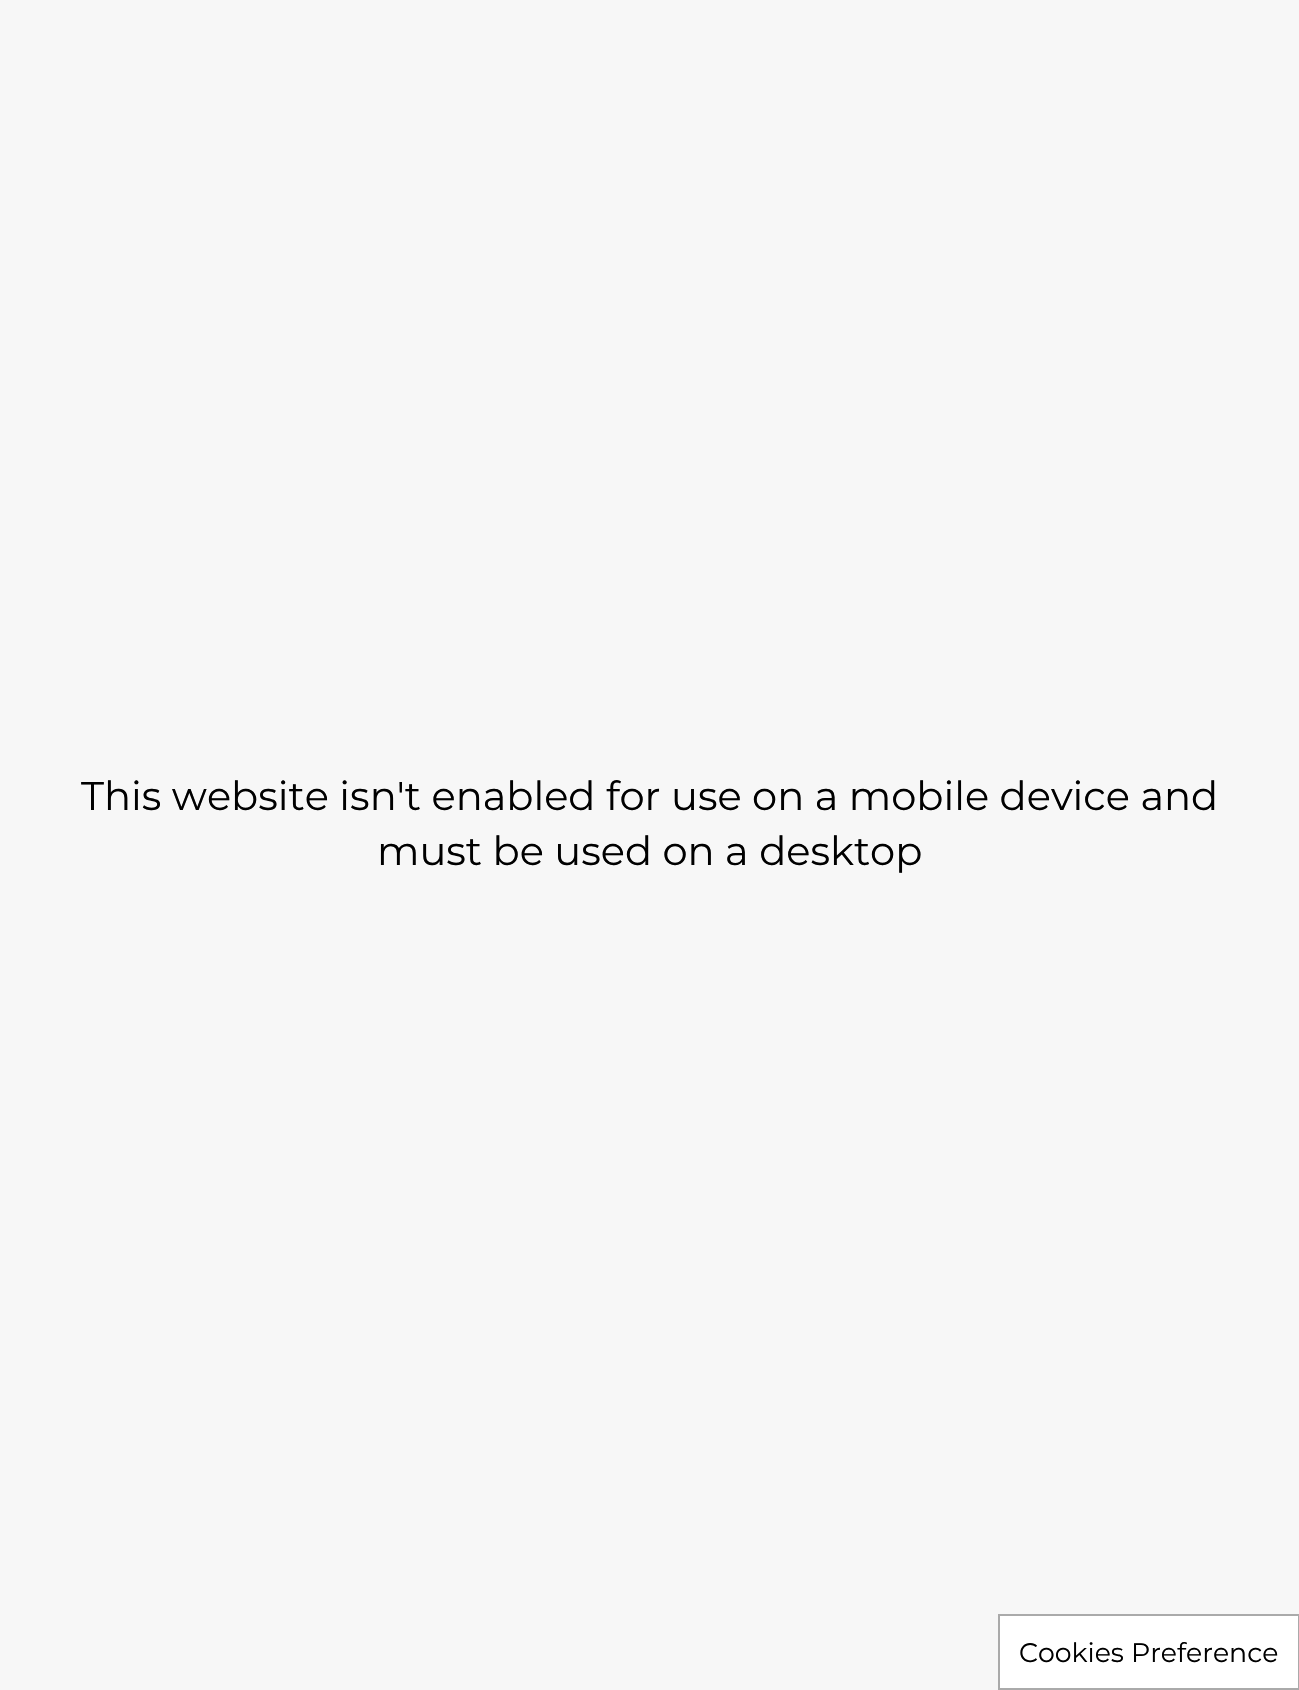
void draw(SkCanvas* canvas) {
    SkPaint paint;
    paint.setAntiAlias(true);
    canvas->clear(0xFFF7F7F7);
    SkFont font1(fontMgr->matchFamilyStyle("Montserrat", SkFontStyle::Normal()), 40);
    font1.setSubpixel(true);
    paint.setColor(0xFF000000);
    canvas->drawString("This website isn't enabled for use on a mobile device and", 81, 810, font1, paint);
    canvas->drawString("must be used on a desktop", 377, 865, font1, paint);
    paint.setColor(0xFFFFFFFF);
    canvas->drawRect(SkRect::MakeXYWH(999, 1615, 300, 74), paint);
    paint.setStyle(SkPaint::kStroke_Style);
    paint.setStrokeWidth(2);
    paint.setColor(0xFFAAAAAA);
    canvas->drawRect(SkRect::MakeXYWH(999, 1615, 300, 74), paint);
    SkFont font2(fontMgr->matchFamilyStyle("Montserrat", SkFontStyle::Normal()), 26.75f);
    font2.setSubpixel(true);
    paint.setStyle(SkPaint::kFill_Style);
    paint.setColor(0xFF000000);
    canvas->drawString("Cookies Preference", 1019, 1662, font2, paint);
}
